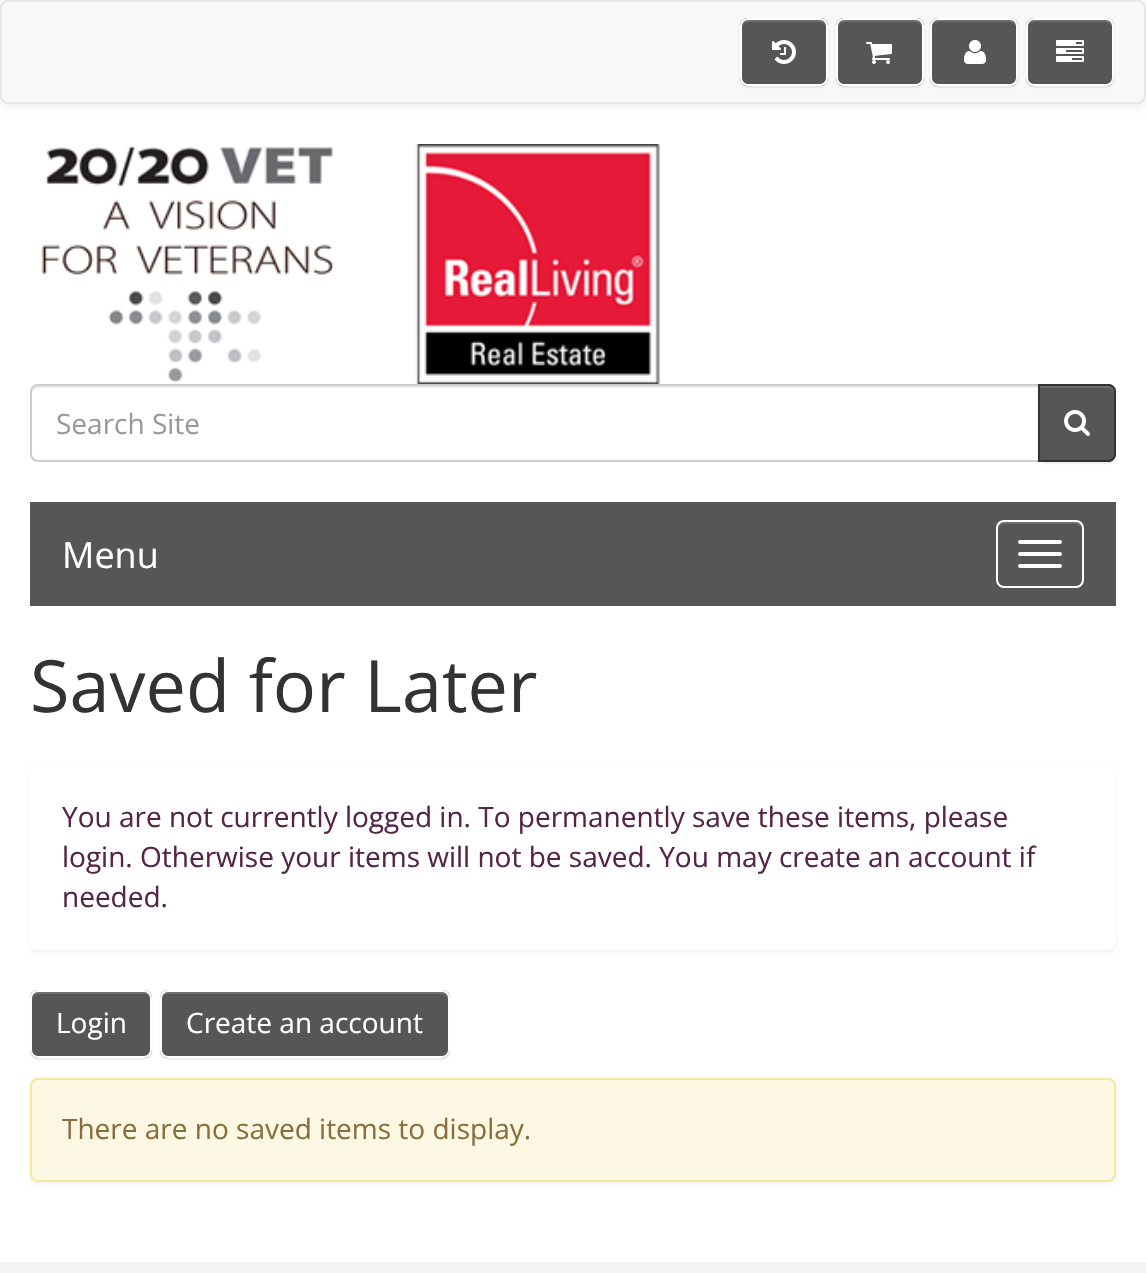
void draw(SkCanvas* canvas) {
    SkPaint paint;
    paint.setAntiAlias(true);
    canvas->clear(0xFFFFFFFF);
    paint.setColor(0x12000000);
    paint.setMaskFilter(SkMaskFilter::MakeBlur(kNormal_SkBlurStyle, 5));
    canvas->drawRoundRect(SkRect::MakeXYWH(0, 2, 1146, 104), 8, 8, paint);
    paint.setMaskFilter(nullptr);
    paint.setColor(0xFFF8F8F8);
    canvas->drawRoundRect(SkRect::MakeXYWH(1, 1, 1144, 102), 7, 7, paint);
    paint.setStyle(SkPaint::kStroke_Style);
    paint.setStrokeWidth(2);
    paint.setColor(0xFFE7E7E7);
    canvas->drawRoundRect(SkRect::MakeXYWH(1, 1, 1144, 102), 7, 7, paint);
    paint.setStyle(SkPaint::kFill_Style);
    paint.setColor(0x12000000);
    paint.setMaskFilter(SkMaskFilter::MakeBlur(kNormal_SkBlurStyle, 1));
    canvas->drawRoundRect(SkRect::MakeXYWH(740, 20, 88, 68), 8, 8, paint);
    paint.setMaskFilter(nullptr);
    paint.setColor(0xFF565656);
    canvas->drawRoundRect(SkRect::MakeXYWH(740, 18, 88, 68), 8, 8, paint);
    paint.setColor(0xFF6F6F6F);
    canvas->drawPath(SkPathBuilder().moveTo(748, 22).lineTo(820, 22).cubicTo(823, 22, 826, 25, 826, 28).cubicTo(826, 17, 817, 20, 808, 20).lineTo(760, 20).cubicTo(751, 20, 742, 17, 742, 28).cubicTo(742, 25, 745, 22, 748, 22).close().detach(), paint);
    paint.setStyle(SkPaint::kStroke_Style);
    paint.setColor(0xFFFFFFFF);
    canvas->drawRoundRect(SkRect::MakeXYWH(741, 19, 86, 66), 7, 7, paint);
    canvas->drawImageRect(SkImages::DeferredFromEncodedData(SkData::MakeFromFileName("img1.png")), SkRect::MakeXYWH(772, 40, 24, 24), SkSamplingOptions());
    paint.setStyle(SkPaint::kFill_Style);
    paint.setColor(0x12000000);
    paint.setMaskFilter(SkMaskFilter::MakeBlur(kNormal_SkBlurStyle, 1));
    canvas->drawRoundRect(SkRect::MakeXYWH(836, 20, 88, 68), 8, 8, paint);
    paint.setMaskFilter(nullptr);
    paint.setColor(0xFF565656);
    canvas->drawRoundRect(SkRect::MakeXYWH(836, 18, 88, 68), 8, 8, paint);
    paint.setColor(0xFF6F6F6F);
    canvas->drawPath(SkPathBuilder().moveTo(844, 22).lineTo(916, 22).cubicTo(919, 22, 922, 25, 922, 28).cubicTo(922, 17, 913, 20, 904, 20).lineTo(856, 20).cubicTo(847, 20, 838, 17, 838, 28).cubicTo(838, 25, 841, 22, 844, 22).close().detach(), paint);
    paint.setStyle(SkPaint::kStroke_Style);
    paint.setColor(0xFFFFFFFF);
    canvas->drawRoundRect(SkRect::MakeXYWH(837, 19, 86, 66), 7, 7, paint);
    canvas->drawImageRect(SkImages::DeferredFromEncodedData(SkData::MakeFromFileName("img2.png")), SkRect::MakeXYWH(866, 42, 26, 22), SkSamplingOptions());
    paint.setStyle(SkPaint::kFill_Style);
    paint.setColor(0x12000000);
    paint.setMaskFilter(SkMaskFilter::MakeBlur(kNormal_SkBlurStyle, 1));
    canvas->drawRoundRect(SkRect::MakeXYWH(930, 20, 88, 68), 8, 8, paint);
    paint.setMaskFilter(nullptr);
    paint.setColor(0xFF565656);
    canvas->drawRoundRect(SkRect::MakeXYWH(930, 18, 88, 68), 8, 8, paint);
    paint.setColor(0xFF6F6F6F);
    canvas->drawPath(SkPathBuilder().moveTo(938, 22).lineTo(1010, 22).cubicTo(1013, 22, 1016, 25, 1016, 28).cubicTo(1016, 17, 1007, 20, 998, 20).lineTo(950, 20).cubicTo(941, 20, 932, 17, 932, 28).cubicTo(932, 25, 935, 22, 938, 22).close().detach(), paint);
    paint.setStyle(SkPaint::kStroke_Style);
    paint.setColor(0xFFFFFFFF);
    canvas->drawRoundRect(SkRect::MakeXYWH(931, 19, 86, 66), 7, 7, paint);
    canvas->drawImageRect(SkImages::DeferredFromEncodedData(SkData::MakeFromFileName("img3.png")), SkRect::MakeXYWH(964, 40, 22, 24), SkSamplingOptions());
    paint.setStyle(SkPaint::kFill_Style);
    paint.setColor(0x12000000);
    paint.setMaskFilter(SkMaskFilter::MakeBlur(kNormal_SkBlurStyle, 1));
    canvas->drawRoundRect(SkRect::MakeXYWH(1026, 20, 88, 68), 8, 8, paint);
    paint.setMaskFilter(nullptr);
    paint.setColor(0xFF565656);
    canvas->drawRoundRect(SkRect::MakeXYWH(1026, 18, 88, 68), 8, 8, paint);
    paint.setColor(0xFF6F6F6F);
    canvas->drawPath(SkPathBuilder().moveTo(1034, 22).lineTo(1106, 22).cubicTo(1109, 22, 1112, 25, 1112, 28).cubicTo(1112, 17, 1103, 20, 1094, 20).lineTo(1046, 20).cubicTo(1037, 20, 1028, 17, 1028, 28).cubicTo(1028, 25, 1031, 22, 1034, 22).close().detach(), paint);
    paint.setStyle(SkPaint::kStroke_Style);
    paint.setColor(0xFFFFFFFF);
    canvas->drawRoundRect(SkRect::MakeXYWH(1027, 19, 86, 66), 7, 7, paint);
    canvas->drawImageRect(SkImages::DeferredFromEncodedData(SkData::MakeFromFileName("img4.png")), SkRect::MakeXYWH(1056, 40, 28, 22), SkSamplingOptions());
    canvas->drawImageRect(SkImages::DeferredFromEncodedData(SkData::MakeFromFileName("img5.png")), SkRect::MakeXYWH(41, 144, 619, 240), SkSamplingOptions());
    paint.setStyle(SkPaint::kFill_Style);
    paint.setColor(0xFFECECEC);
    canvas->drawPath(SkPathBuilder().moveTo(38, 388).lineTo(1038, 388).lineTo(1038, 386).lineTo(38, 386).cubicTo(33, 386, 32, 390, 32, 394).cubicTo(32, 391, 35, 388, 38, 388).close().detach(), paint);
    paint.setStyle(SkPaint::kStroke_Style);
    paint.setColor(0xFFCCCCCC);
    canvas->drawPath(SkPathBuilder().moveTo(38, 385).lineTo(1039, 385).lineTo(1039, 461).lineTo(38, 461).cubicTo(34, 461, 31, 458, 31, 454).lineTo(31, 392).cubicTo(31, 388, 34, 385, 38, 385).close().detach(), paint);
    SkFont font1(fontMgr->matchFamilyStyle("Open Sans", SkFontStyle::Normal()), 28);
    font1.setSubpixel(true);
    paint.setStyle(SkPaint::kFill_Style);
    paint.setColor(0xFF999999);
    canvas->drawString("Search Site", 56, 434, font1, paint);
    paint.setColor(0x12000000);
    paint.setMaskFilter(SkMaskFilter::MakeBlur(kNormal_SkBlurStyle, 1));
    canvas->drawRoundRect(SkRect::MakeXYWH(1038, 386, 78, 78), 8, 8, paint);
    paint.setMaskFilter(nullptr);
    paint.setColor(0xFF565656);
    canvas->drawPath(SkPathBuilder().moveTo(1038, 384).lineTo(1108, 384).cubicTo(1112.5f, 384, 1116, 387.5f, 1116, 392).lineTo(1116, 454).cubicTo(1116, 458.5f, 1112.5f, 462, 1108, 462).lineTo(1038, 462).close().detach(), paint);
    paint.setColor(0xFF6F6F6F);
    canvas->drawPath(SkPathBuilder().moveTo(1040, 388).lineTo(1108, 388).cubicTo(1111, 388, 1114, 391, 1114, 394).lineTo(1114, 392).cubicTo(1114, 389, 1111, 386, 1108, 386).lineTo(1040, 386).close().detach(), paint);
    paint.setStyle(SkPaint::kStroke_Style);
    paint.setColor(0xFF333333);
    canvas->drawPath(SkPathBuilder().moveTo(1039, 385).lineTo(1108, 385).cubicTo(1112, 385, 1115, 388, 1115, 392).lineTo(1115, 454).cubicTo(1115, 458, 1112, 461, 1108, 461).lineTo(1039, 461).close().detach(), paint);
    canvas->drawImageRect(SkImages::DeferredFromEncodedData(SkData::MakeFromFileName("img6.png")), SkRect::MakeXYWH(1064, 410, 26, 26), SkSamplingOptions());
    paint.setStyle(SkPaint::kFill_Style);
    paint.setColor(0xFF565656);
    canvas->drawRect(SkRect::MakeXYWH(30, 502, 1086, 104), paint);
    SkFont font2(fontMgr->matchFamilyStyle("Open Sans", SkFontStyle::Normal()), 36);
    font2.setSubpixel(true);
    paint.setColor(0xFFFFFFFF);
    canvas->drawString("Menu", 62, 568, font2, paint);
    paint.setColor(0xFF6F6F6F);
    canvas->drawPath(SkPathBuilder().moveTo(1004, 524).lineTo(1076, 524).cubicTo(1079, 524, 1082, 527, 1082, 530).cubicTo(1082, 519, 1073, 522, 1064, 522).lineTo(1016, 522).cubicTo(1007, 522, 998, 519, 998, 530).cubicTo(998, 527, 1001, 524, 1004, 524).close().detach(), paint);
    paint.setStyle(SkPaint::kStroke_Style);
    paint.setColor(0xFFFFFFFF);
    canvas->drawRoundRect(SkRect::MakeXYWH(997, 521, 86, 66), 7, 7, paint);
    paint.setStyle(SkPaint::kFill_Style);
    canvas->drawRoundRect(SkRect::MakeXYWH(1018, 540, 44, 4), 2, 2, paint);
    canvas->drawRoundRect(SkRect::MakeXYWH(1018, 552, 44, 4), 2, 2, paint);
    canvas->drawRoundRect(SkRect::MakeXYWH(1018, 564, 44, 4), 2, 2, paint);
    SkFont font3(fontMgr->matchFamilyStyle("Open Sans", SkFontStyle::Normal()), 72);
    font3.setSubpixel(true);
    paint.setColor(0xFF333333);
    canvas->drawString("Saved for Later", 30, 712, font3, paint);
    paint.setColor(0x0D000000);
    paint.setMaskFilter(SkMaskFilter::MakeBlur(kNormal_SkBlurStyle, 2));
    canvas->drawRoundRect(SkRect::MakeXYWH(30, 768, 1086, 184), 8, 8, paint);
    paint.setMaskFilter(nullptr);
    paint.setColor(0xFFFFFFFF);
    canvas->drawRoundRect(SkRect::MakeXYWH(30, 766, 1086, 184), 8, 8, paint);
    paint.setColor(0xFF552448);
    canvas->drawString("You are not currently logged in. To permanently save these items, please", 62, 827, font1, paint);
    canvas->drawString("login. Otherwise your items will not be saved. You may create an account if", 62, 867, font1, paint);
    canvas->drawString("needed.", 62, 907, font1, paint);
    paint.setColor(0x12000000);
    paint.setMaskFilter(SkMaskFilter::MakeBlur(kNormal_SkBlurStyle, 1));
    canvas->drawRoundRect(SkRect::MakeXYWH(30, 992, 122, 68), 8, 8, paint);
    paint.setMaskFilter(nullptr);
    paint.setColor(0xFF565656);
    canvas->drawRoundRect(SkRect::MakeXYWH(30, 990, 122, 68), 8, 8, paint);
    paint.setColor(0xFF6F6F6F);
    canvas->drawPath(SkPathBuilder().moveTo(38, 994).lineTo(144, 994).cubicTo(147, 994, 150, 997, 150, 1000).lineTo(150, 998).cubicTo(150, 995, 147, 992, 144, 992).lineTo(38, 992).cubicTo(35, 992, 32, 995, 32, 998).lineTo(32, 1000).cubicTo(32, 997, 35, 994, 38, 994).close().detach(), paint);
    paint.setStyle(SkPaint::kStroke_Style);
    paint.setColor(0xFFFFFFFF);
    canvas->drawRoundRect(SkRect::MakeXYWH(31, 991, 120, 66), 7, 7, paint);
    paint.setStyle(SkPaint::kFill_Style);
    canvas->drawString("Login", 56, 1033, font1, paint);
    paint.setColor(0x12000000);
    paint.setMaskFilter(SkMaskFilter::MakeBlur(kNormal_SkBlurStyle, 1));
    canvas->drawRoundRect(SkRect::MakeXYWH(160, 992, 290, 68), 8, 8, paint);
    paint.setMaskFilter(nullptr);
    paint.setColor(0xFF565656);
    canvas->drawRoundRect(SkRect::MakeXYWH(160, 990, 290, 68), 8, 8, paint);
    paint.setColor(0xFF6F6F6F);
    canvas->drawPath(SkPathBuilder().moveTo(168, 994).lineTo(442, 994).cubicTo(445, 994, 448, 997, 448, 1000).lineTo(448, 998).cubicTo(448, 995, 445, 992, 442, 992).lineTo(168, 992).cubicTo(165, 992, 162, 995, 162, 998).lineTo(162, 1000).cubicTo(162, 997, 165, 994, 168, 994).close().detach(), paint);
    paint.setStyle(SkPaint::kStroke_Style);
    paint.setColor(0xFFFFFFFF);
    canvas->drawRoundRect(SkRect::MakeXYWH(161, 991, 288, 66), 7, 7, paint);
    paint.setStyle(SkPaint::kFill_Style);
    canvas->drawString("Create an account", 186, 1033, font1, paint);
    paint.setColor(0x0D000000);
    paint.setMaskFilter(SkMaskFilter::MakeBlur(kNormal_SkBlurStyle, 2));
    canvas->drawRoundRect(SkRect::MakeXYWH(30, 1080, 1086, 104), 8, 8, paint);
    paint.setMaskFilter(nullptr);
    paint.setColor(0xFFFCF8E3);
    canvas->drawRoundRect(SkRect::MakeXYWH(30, 1078, 1086, 104), 8, 8, paint);
    paint.setColor(0xFFFDFAEA);
    canvas->drawPath(SkPathBuilder().moveTo(38, 1082).lineTo(1108, 1082).cubicTo(1111, 1082, 1114, 1085, 1114, 1088).lineTo(1114, 1086).cubicTo(1114, 1083, 1111, 1080, 1108, 1080).lineTo(38, 1080).cubicTo(35, 1080, 32, 1083, 32, 1086).lineTo(32, 1088).cubicTo(32, 1085, 35, 1082, 38, 1082).close().detach(), paint);
    paint.setStyle(SkPaint::kStroke_Style);
    paint.setColor(0xFFF5E79E);
    canvas->drawRoundRect(SkRect::MakeXYWH(31, 1079, 1084, 102), 7, 7, paint);
    paint.setStyle(SkPaint::kFill_Style);
    paint.setColor(0xFF8A6D3B);
    canvas->drawString("There are no saved items to display.", 62, 1139, font1, paint);
    paint.setColor(0xFFF5F5F5);
    canvas->drawRect(SkRect::MakeXYWH(0, 1262, 1146, 11), paint);
}
